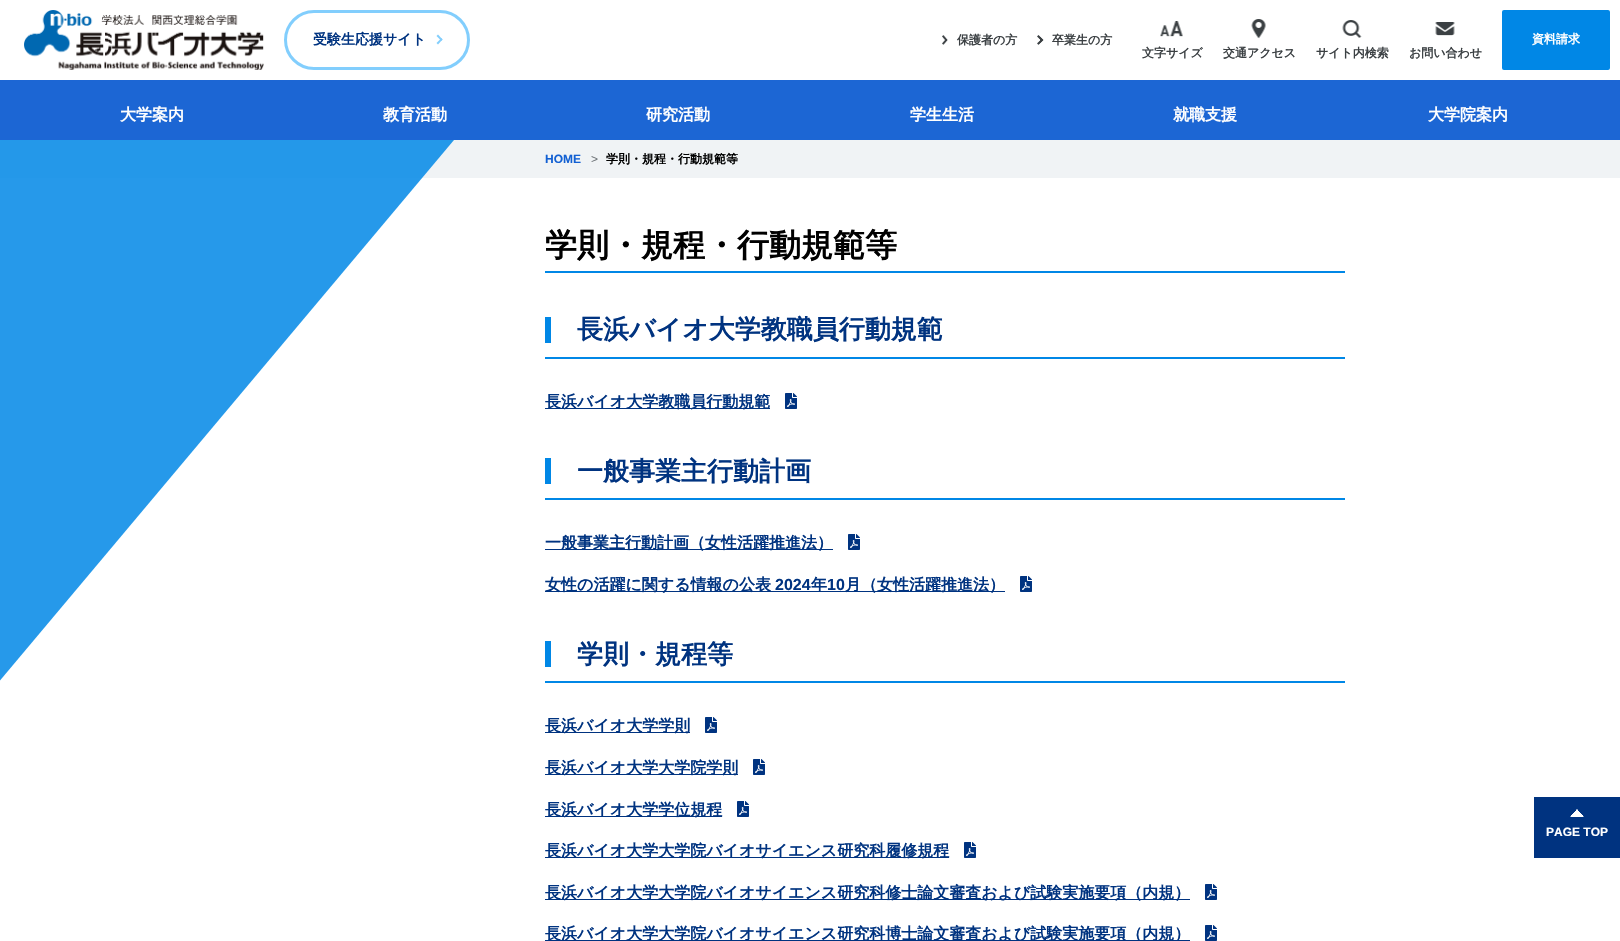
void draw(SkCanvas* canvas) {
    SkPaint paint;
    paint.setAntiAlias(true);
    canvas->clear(0xFFFFFFFF);
    canvas->drawImageRect(SkImages::DeferredFromEncodedData(SkData::MakeFromFileName("img1.png")), SkRect::MakeXYWH(24, 10, 240, 60), SkSamplingOptions());
    paint.setStyle(SkPaint::kStroke_Style);
    paint.setStrokeWidth(3);
    paint.setColor(0xFF82CEFD);
    canvas->drawRoundRect(SkRect::MakeXYWH(285.5f, 11.5f, 183, 57), 28.5f, 28.5f, paint);
    SkFont font1(fontMgr->matchFamilyStyle("WenQuanYi Zen Hei", SkFontStyle::Bold()), 14);
    font1.setSubpixel(true);
    paint.setStyle(SkPaint::kFill_Style);
    paint.setColor(0xFF003380);
    canvas->drawString("受験生応援サイト", 313, 44, font1, paint);
    paint.setColor(0xFF82CEFD);
    canvas->drawPath(SkPathBuilder().moveTo(438, 34.5f).lineTo(442.5f, 39.5f).lineTo(441.5f, 41).lineTo(436.5f, 36).close().detach(), paint);
    canvas->drawPath(SkPathBuilder().moveTo(441.5f, 38).lineTo(442.5f, 39.5f).lineTo(438, 44.5f).lineTo(436.5f, 43).close().detach(), paint);
    canvas->drawImageRect(SkImages::DeferredFromEncodedData(SkData::MakeFromFileName("img2.png")), SkRect::MakeXYWH(942, 35, 6, 10), SkSamplingOptions());
    SkFont font2(fontMgr->matchFamilyStyle("WenQuanYi Zen Hei", SkFontStyle::Bold()), 12);
    font2.setSubpixel(true);
    paint.setColor(0xFF3B4043);
    canvas->drawString("保護者の方", 957, 44, font2, paint);
    canvas->drawImageRect(SkImages::DeferredFromEncodedData(SkData::MakeFromFileName("img3.png")), SkRect::MakeXYWH(1037, 35, 7, 10), SkSamplingOptions());
    canvas->drawString("卒業生の方", 1052, 44, font2, paint);
    paint.setColor(0xFF0087E6);
    canvas->drawRoundRect(SkRect::MakeXYWH(1502, 10, 108, 60), 2, 2, paint);
    paint.setColor(0xFFFFFFFF);
    canvas->drawString("資料請求", 1532, 43, font2, paint);
    canvas->drawImageRect(SkImages::DeferredFromEncodedData(SkData::MakeFromFileName("img4.png")), SkRect::MakeXYWH(1160, 21, 23, 16), SkSamplingOptions());
    paint.setColor(0xFF3B4043);
    canvas->drawString("文字サイズ", 1142, 57, font2, paint);
    canvas->drawImageRect(SkImages::DeferredFromEncodedData(SkData::MakeFromFileName("img5.png")), SkRect::MakeXYWH(1251, 19, 15, 20), SkSamplingOptions());
    canvas->drawString("交通アクセス", 1223, 57, font2, paint);
    canvas->drawImageRect(SkImages::DeferredFromEncodedData(SkData::MakeFromFileName("img6.png")), SkRect::MakeXYWH(1342, 20, 20, 18), SkSamplingOptions());
    canvas->drawString("サイト内検索", 1316, 57, font2, paint);
    canvas->drawImageRect(SkImages::DeferredFromEncodedData(SkData::MakeFromFileName("img7.png")), SkRect::MakeXYWH(1435, 22, 20, 14), SkSamplingOptions());
    canvas->drawString("お問い合わせ", 1409, 57, font2, paint);
    paint.setColor(0xFF1C66D4);
    canvas->drawRect(SkRect::MakeXYWH(0, 80, 1620, 60), paint);
    SkFont font3(fontMgr->matchFamilyStyle("WenQuanYi Zen Hei", SkFontStyle::Bold()), 16);
    font3.setSubpixel(true);
    paint.setColor(0xFFFFFFFF);
    canvas->drawString("大学案内", 120, 120, font3, paint);
    canvas->drawString("教育活動", 383, 120, font3, paint);
    canvas->drawString("研究活動", 646, 120, font3, paint);
    canvas->drawString("学生生活", 910, 120, font3, paint);
    canvas->drawString("就職支援", 1173, 120, font3, paint);
    canvas->drawString("大学院案内", 1428, 120, font3, paint);
    paint.setColor(0xFFF0F3F5);
    canvas->drawRect(SkRect::MakeXYWH(0, 140, 1620, 38), paint);
    paint.setColor(0xD90087E6);
    canvas->drawPath(SkPathBuilder().moveTo(0, 140).lineTo(454, 140).lineTo(-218, 940).lineTo(-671, 940).close().detach(), paint);
    SkFont font4(fontMgr->matchFamilyStyle("Liberation Sans", SkFontStyle::Bold()), 12);
    font4.setSubpixel(true);
    paint.setColor(0xFF1260D3);
    canvas->drawString("HOME", 545, 163, font4, paint);
    SkFont font5(fontMgr->matchFamilyStyle("Liberation Sans", SkFontStyle::Normal()), 12);
    font5.setSubpixel(true);
    paint.setColor(0xFF6F7579);
    canvas->drawString(">", 591, 163, font5, paint);
    paint.setColor(0xFF000000);
    canvas->drawString("学則・規程・行動規範等", 606, 163, font2, paint);
    paint.setColor(0xFF0087E6);
    canvas->drawRect(SkRect::MakeXYWH(545, 271, 800, 2), paint);
    SkFont font6(fontMgr->matchFamilyStyle("WenQuanYi Zen Hei", SkFontStyle::Bold()), 32);
    font6.setSubpixel(true);
    paint.setColor(0xFF000000);
    canvas->drawString("学則・規程・行動規範等", 545, 256, font6, paint);
    paint.setColor(0xFF0087E6);
    canvas->drawRect(SkRect::MakeXYWH(545, 357, 800, 2), paint);
    canvas->drawRect(SkRect::MakeXYWH(545, 317, 6, 26), paint);
    SkFont font7(fontMgr->matchFamilyStyle("WenQuanYi Zen Hei", SkFontStyle::Bold()), 26);
    font7.setSubpixel(true);
    paint.setColor(0xFF003380);
    canvas->drawString("長浜バイオ大学教職員行動規範", 577, 338, font7, paint);
    canvas->drawRect(SkRect::MakeXYWH(545, 408, 225, 1), paint);
    canvas->drawString("長浜バイオ大学教職員行動規範", 545, 407, font3, paint);
    canvas->drawImageRect(SkImages::DeferredFromEncodedData(SkData::MakeFromFileName("img8.png")), SkRect::MakeXYWH(785, 393, 12, 16), SkSamplingOptions());
    paint.setColor(0xFF0087E6);
    canvas->drawRect(SkRect::MakeXYWH(545, 498, 800, 2), paint);
    canvas->drawRect(SkRect::MakeXYWH(545, 458, 6, 26), paint);
    paint.setColor(0xFF003380);
    canvas->drawString("一般事業主行動計画", 577, 480, font7, paint);
    canvas->drawRect(SkRect::MakeXYWH(545, 549, 288, 1), paint);
    canvas->drawString("一般事業主行動計画（女性活躍推進法）", 545, 548, font3, paint);
    canvas->drawImageRect(SkImages::DeferredFromEncodedData(SkData::MakeFromFileName("img8.png")), SkRect::MakeXYWH(848, 534, 12, 16), SkSamplingOptions());
    canvas->drawRect(SkRect::MakeXYWH(545, 591, 460, 1), paint);
    canvas->drawString("女性の活躍に関する情報の公表", 545, 590, font3, paint);
    SkFont font8(fontMgr->matchFamilyStyle("Liberation Sans", SkFontStyle::Bold()), 16);
    font8.setSubpixel(true);
    canvas->drawString("2024", 775, 590, font8, paint);
    canvas->drawString("年", 811, 590, font3, paint);
    canvas->drawString("10", 827, 590, font8, paint);
    canvas->drawString("月（女性活躍推進法）", 845, 590, font3, paint);
    canvas->drawImageRect(SkImages::DeferredFromEncodedData(SkData::MakeFromFileName("img8.png")), SkRect::MakeXYWH(1020, 576, 12, 16), SkSamplingOptions());
    paint.setColor(0xFF0087E6);
    canvas->drawRect(SkRect::MakeXYWH(545, 681, 800, 2), paint);
    canvas->drawRect(SkRect::MakeXYWH(545, 641, 6, 26), paint);
    paint.setColor(0xFF003380);
    canvas->drawString("学則・規程等", 577, 663, font7, paint);
    canvas->drawRect(SkRect::MakeXYWH(545, 732, 145, 1), paint);
    canvas->drawString("長浜バイオ大学学則", 545, 731, font3, paint);
    canvas->drawImageRect(SkImages::DeferredFromEncodedData(SkData::MakeFromFileName("img8.png")), SkRect::MakeXYWH(705, 717, 12, 16), SkSamplingOptions());
    canvas->drawRect(SkRect::MakeXYWH(545, 774, 193, 1), paint);
    canvas->drawString("長浜バイオ大学大学院学則", 545, 773, font3, paint);
    canvas->drawImageRect(SkImages::DeferredFromEncodedData(SkData::MakeFromFileName("img8.png")), SkRect::MakeXYWH(753, 759, 12, 16), SkSamplingOptions());
    canvas->drawRect(SkRect::MakeXYWH(545, 816, 177, 1), paint);
    canvas->drawString("長浜バイオ大学学位規程", 545, 815, font3, paint);
    canvas->drawImageRect(SkImages::DeferredFromEncodedData(SkData::MakeFromFileName("img8.png")), SkRect::MakeXYWH(737, 801, 12, 16), SkSamplingOptions());
    canvas->drawRect(SkRect::MakeXYWH(545, 857, 404, 1), paint);
    canvas->drawString("長浜バイオ大学大学院バイオサイエンス研究科履修規程", 545, 856, font3, paint);
    canvas->drawImageRect(SkImages::DeferredFromEncodedData(SkData::MakeFromFileName("img8.png")), SkRect::MakeXYWH(964, 842, 12, 16), SkSamplingOptions());
    canvas->drawRect(SkRect::MakeXYWH(545, 899, 645, 1), paint);
    canvas->drawString("長浜バイオ大学大学院バイオサイエンス研究科修士論文審査および試験実施要項（内規）", 545, 898, font3, paint);
    canvas->drawImageRect(SkImages::DeferredFromEncodedData(SkData::MakeFromFileName("img8.png")), SkRect::MakeXYWH(1205, 884, 12, 16), SkSamplingOptions());
    canvas->drawRect(SkRect::MakeXYWH(545, 940, 645, 1), paint);
    canvas->drawString("長浜バイオ大学大学院バイオサイエンス研究科博士論文審査および試験実施要項（内規）", 545, 939, font3, paint);
    canvas->drawImageRect(SkImages::DeferredFromEncodedData(SkData::MakeFromFileName("img8.png")), SkRect::MakeXYWH(1205, 925, 12, 16), SkSamplingOptions());
    canvas->drawRect(SkRect::MakeXYWH(1534, 797, 86, 61), paint);
    {
        const SkColor colors[] = {0xFF003380, 0xFFFFFFFF};
        const float stops[] = {0.49f, 0.51f};
        const SkPoint ends[] = {{1584, 810}, {1577, 816}};
        paint.setShader(SkGradientShader::MakeLinear(ends, colors, stops, 2, SkTileMode::kClamp));
        paint.setAlpha(255);
    }
    canvas->drawRect(SkRect::MakeXYWH(1577, 809, 7, 8), paint);
    {
        const SkColor colors[] = {0xFF003380, 0xFFFFFFFF};
        const float stops[] = {0.49f, 0.51f};
        const SkPoint ends[] = {{1570, 810}, {1577, 816}};
        paint.setShader(SkGradientShader::MakeLinear(ends, colors, stops, 2, SkTileMode::kClamp));
        paint.setAlpha(255);
    }
    canvas->drawRect(SkRect::MakeXYWH(1570, 809, 7, 8), paint);
    paint.setShader(nullptr);
    paint.setColor(0xFFFFFFFF);
    canvas->drawString("PAGE TOP", 1546, 836, font4, paint);
}
